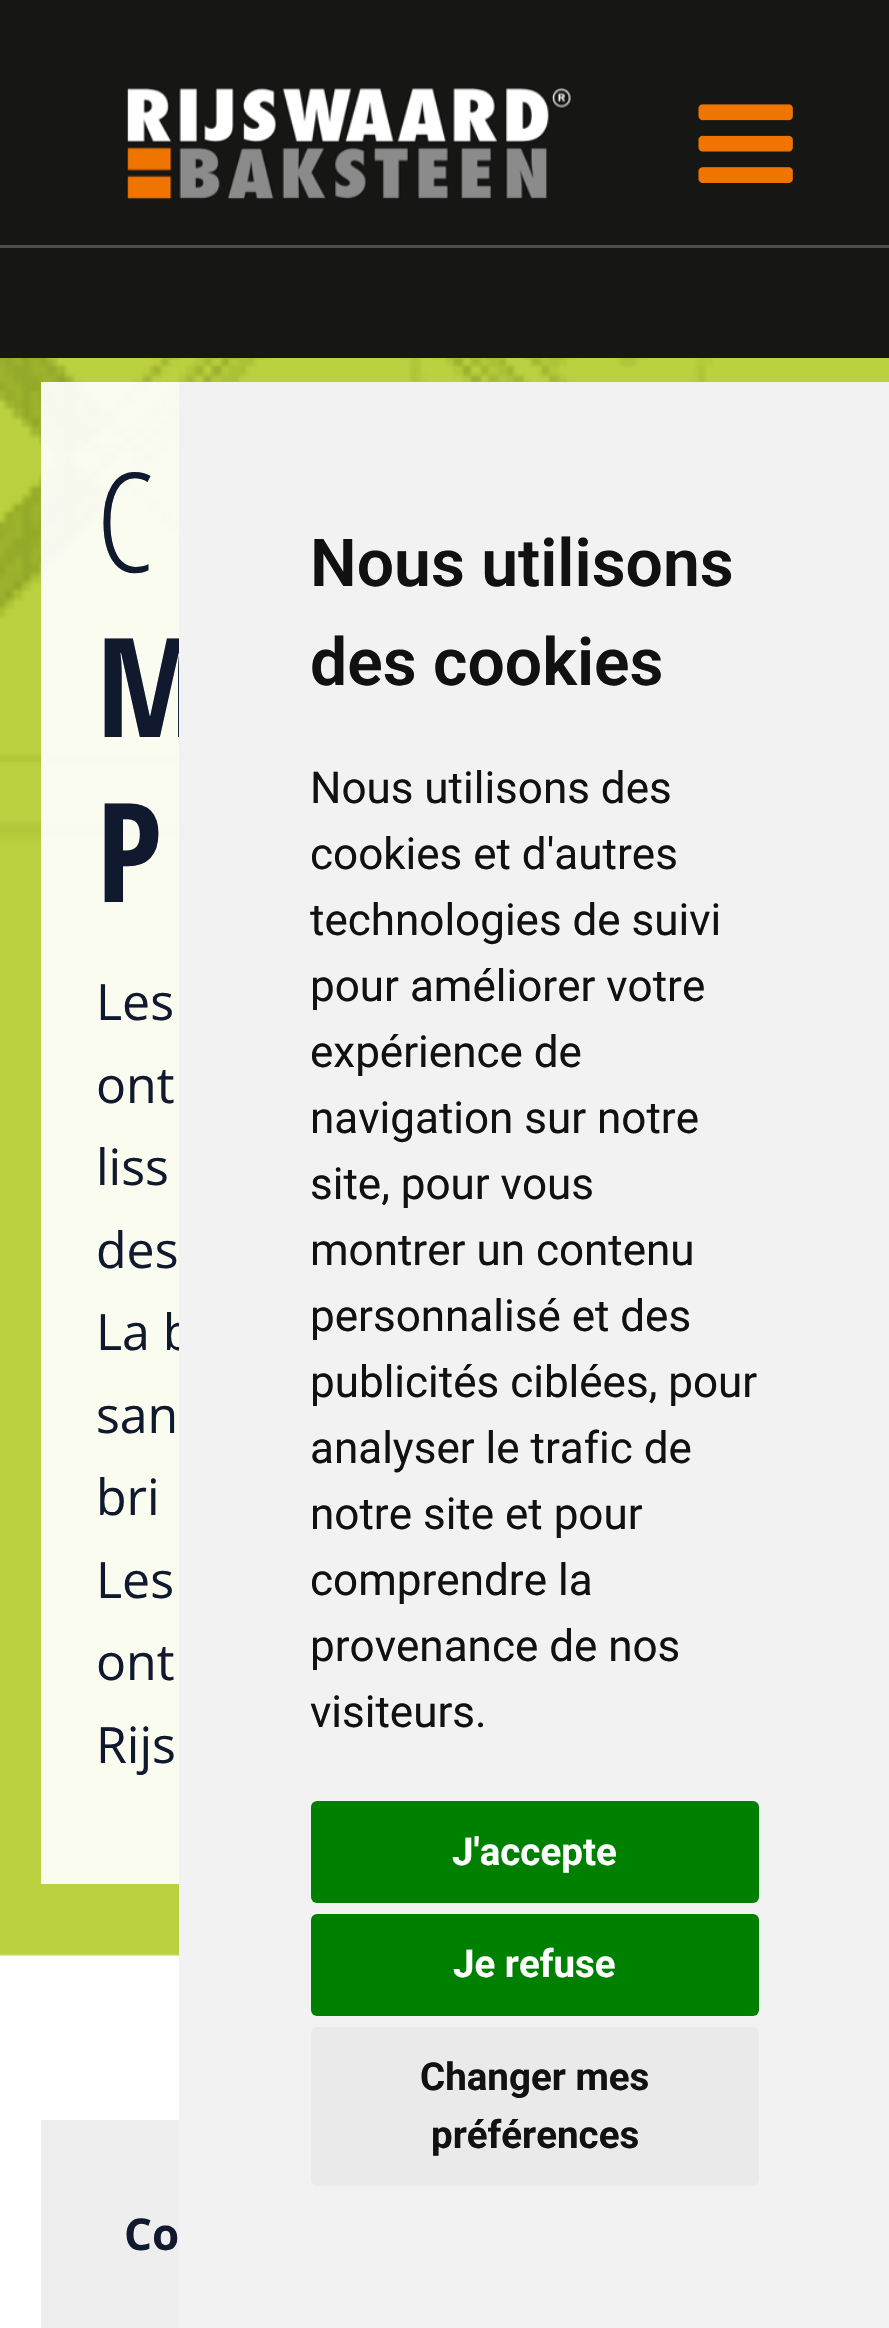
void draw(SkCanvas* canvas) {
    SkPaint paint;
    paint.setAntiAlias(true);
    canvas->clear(0xFFFFFFFF);
    paint.setColor(0xFF161615);
    canvas->drawRect(SkRect::MakeXYWH(0, 0, 889, 358), paint);
    canvas->drawImageRect(SkImages::DeferredFromEncodedData(SkData::MakeFromFileName("img1.png")), SkRect::MakeXYWH(127, 88, 445, 112), SkSamplingOptions());
    canvas->drawImageRect(SkImages::DeferredFromEncodedData(SkData::MakeFromFileName("img2.png")), SkRect::MakeXYWH(698, 104, 95, 79), SkSamplingOptions());
    paint.setColor(0xFF4D4D4D);
    canvas->drawRect(SkRect::MakeXYWH(0, 245, 889, 3), paint);
    canvas->drawImageRect(SkImages::DeferredFromEncodedData(SkData::MakeFromFileName("img3.png")), SkRect::MakeXYWH(0, 358, 889, 1598), SkSamplingOptions());
    paint.setColor(0xEBFFFFFF);
    canvas->drawRect(SkRect::MakeXYWH(41, 382, 138, 1502), paint);
    SkFont font1(fontMgr->matchFamilyStyle("Open Sans Condensed", SkFontStyle(300, SkFontStyle::kNormal_Width, SkFontStyle::kUpright_Slant)), 138);
    font1.setSubpixel(true);
    paint.setColor(0xFF11192F);
    canvas->drawString("C", 96, 572, font1, paint);
    SkFont font2(fontMgr->matchFamilyStyle("Open Sans Condensed", SkFontStyle::Bold()), 138);
    font2.setSubpixel(true);
    canvas->drawString("M", 96, 737, font2, paint);
    canvas->drawString("P", 96, 902, font2, paint);
    SkFont font3(fontMgr->matchFamilyStyle("Open Sans", SkFontStyle::Normal()), 50);
    font3.setSubpixel(true);
    canvas->drawString("Les", 96, 1020, font3, paint);
    canvas->drawString("ont", 96, 1103, font3, paint);
    canvas->drawString("liss", 96, 1185, font3, paint);
    canvas->drawString("des", 96, 1268, font3, paint);
    canvas->drawString("La b", 96, 1350, font3, paint);
    canvas->drawString("san", 96, 1433, font3, paint);
    canvas->drawString("bri", 96, 1515, font3, paint);
    canvas->drawString("Les", 96, 1598, font3, paint);
    canvas->drawString("ont", 96, 1680, font3, paint);
    canvas->drawString("Rijs", 96, 1763, font3, paint);
    paint.setColor(0xFFEEEEEE);
    canvas->drawRect(SkRect::MakeXYWH(41, 2120, 138, 208), paint);
    SkFont font4(fontMgr->matchFamilyStyle("Open Sans", SkFontStyle::Bold()), 44);
    font4.setSubpixel(true);
    paint.setColor(0xFF11192F);
    canvas->drawString("Co", 124, 2250, font4, paint);
    paint.setColor(0xFFF2F2F2);
    canvas->drawRect(SkRect::MakeXYWH(179, 382, 710, 1946), paint);
    SkFont font5(fontMgr->matchFamilyStyle("Roboto", SkFontStyle(600, SkFontStyle::kNormal_Width, SkFontStyle::kUpright_Slant)), 66);
    font5.setSubpixel(true);
    paint.setColor(0xFF111111);
    canvas->drawString("Nous utilisons", 310, 586, font5, paint);
    canvas->drawString("des cookies", 310, 685, font5, paint);
    SkFont font6(fontMgr->matchFamilyStyle("Roboto", SkFontStyle::Normal()), 44);
    font6.setSubpixel(true);
    canvas->drawString("Nous utilisons des", 310, 803, font6, paint);
    canvas->drawString("cookies et d'autres", 310, 869, font6, paint);
    canvas->drawString("technologies de suivi", 310, 935, font6, paint);
    canvas->drawString("pour améliorer votre", 310, 1001, font6, paint);
    canvas->drawString("expérience de", 310, 1067, font6, paint);
    canvas->drawString("navigation sur notre", 310, 1133, font6, paint);
    canvas->drawString("site, pour vous", 310, 1199, font6, paint);
    canvas->drawString("montrer un contenu", 310, 1265, font6, paint);
    canvas->drawString("personnalisé et des", 310, 1331, font6, paint);
    canvas->drawString("publicités ciblées, pour", 310, 1397, font6, paint);
    canvas->drawString("analyser le trafic de", 310, 1463, font6, paint);
    canvas->drawString("notre site et pour", 310, 1529, font6, paint);
    canvas->drawString("comprendre la", 310, 1595, font6, paint);
    canvas->drawString("provenance de nos", 310, 1661, font6, paint);
    canvas->drawString("visiteurs.", 310, 1727, font6, paint);
    paint.setColor(0xFF008000);
    canvas->drawRoundRect(SkRect::MakeXYWH(311, 1801, 448, 102), 6, 6, paint);
    SkFont font7(fontMgr->matchFamilyStyle("Roboto", SkFontStyle::Bold()), 38.5f);
    font7.setSubpixel(true);
    paint.setColor(0xFFFFFFFF);
    canvas->drawString("J'accepte", 452, 1865, font7, paint);
    paint.setColor(0xFF008000);
    canvas->drawRoundRect(SkRect::MakeXYWH(311, 1914, 448, 102), 6, 6, paint);
    paint.setColor(0xFFFFFFFF);
    canvas->drawString("Je refuse", 453, 1977, font7, paint);
    paint.setColor(0xFFEAEAEA);
    canvas->drawRoundRect(SkRect::MakeXYWH(311, 2027, 448, 159), 6, 6, paint);
    paint.setColor(0xFF111111);
    canvas->drawString("Changer mes", 420, 2090, font7, paint);
    canvas->drawString("préférences", 431, 2148, font7, paint);
}
